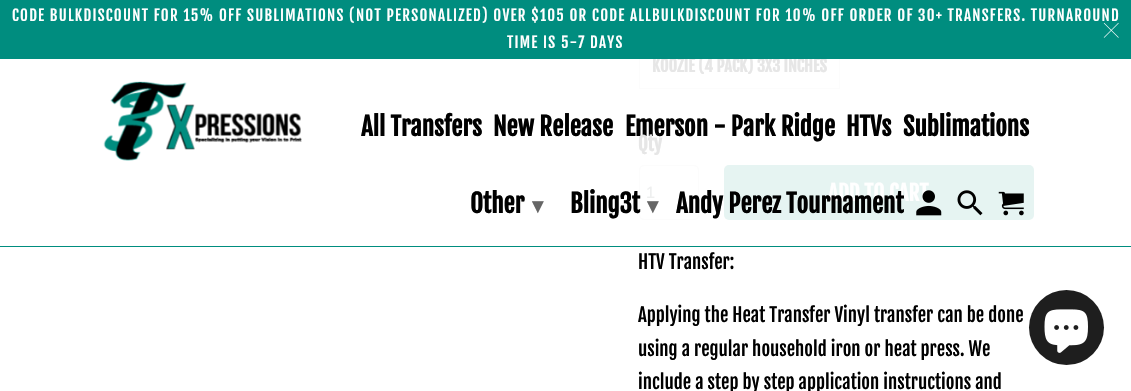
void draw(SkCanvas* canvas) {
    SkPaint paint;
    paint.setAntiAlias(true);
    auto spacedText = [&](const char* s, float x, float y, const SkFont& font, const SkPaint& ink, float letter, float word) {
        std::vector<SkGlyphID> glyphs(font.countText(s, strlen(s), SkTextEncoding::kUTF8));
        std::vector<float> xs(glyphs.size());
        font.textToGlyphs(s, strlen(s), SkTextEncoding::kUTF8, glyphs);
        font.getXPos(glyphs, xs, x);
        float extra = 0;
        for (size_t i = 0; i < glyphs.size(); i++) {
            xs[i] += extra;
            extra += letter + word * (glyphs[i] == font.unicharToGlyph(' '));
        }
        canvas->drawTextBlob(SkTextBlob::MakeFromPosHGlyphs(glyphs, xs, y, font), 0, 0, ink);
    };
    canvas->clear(0xFFFFFFFF);
    paint.setColor(0xFF008D7F);
    canvas->drawRect(SkRect::MakeXYWH(0, 246, 1131, 1), paint);
    paint.setStyle(SkPaint::kStroke_Style);
    paint.setStrokeWidth(1);
    paint.setColor(0xFFFCFCFC);
    canvas->drawRect(SkRect::MakeXYWH(639.5f, 43.5f, 200, 45), paint);
    SkFont font1(fontMgr->matchFamilyStyle("Fjalla One", SkFontStyle::Bold()), 16.25f);
    font1.setSubpixel(true);
    paint.setStyle(SkPaint::kFill_Style);
    paint.setColor(0xFFE6E6E6);
    canvas->drawString("KOOZIE (4 PACK) 3X3 INCHES", 652, 72, font1, paint);
    paint.setColor(0xFF008D7F);
    canvas->drawRect(SkRect::MakeXYWH(0, 0, 1131, 59), paint);
    SkFont font2(fontMgr->matchFamilyStyle("Fjalla One", SkFontStyle::Normal()), 15);
    font2.setSubpixel(true);
    paint.setColor(0xFFFFFFFF);
    spacedText("CODE BULKDISCOUNT FOR 15% OFF SUBLIMATIONS (NOT PERSONALIZED) OVER $105 OR CODE ALLBULKDISCOUNT FOR 10% OFF ORDER OF 30+ TRANSFERS. TURNAROUND", 12, 21, font2, paint, 1.25f, 0);
    spacedText("TIME IS 5-7 DAYS", 507, 48, font2, paint, 1.25f, 0);
    canvas->drawImageRect(SkImages::DeferredFromEncodedData(SkData::MakeFromFileName("img1.png")), SkRect::MakeXYWH(1103, 22, 16, 16), SkSamplingOptions());
    canvas->drawImageRect(SkImages::DeferredFromEncodedData(SkData::MakeFromFileName("img2.png")), SkRect::MakeXYWH(103, 81, 199, 80), SkSamplingOptions());
    SkFont font3(fontMgr->matchFamilyStyle("Fjalla One", SkFontStyle::Bold()), 25);
    font3.setSubpixel(true);
    paint.setColor(0xFF000000);
    canvas->drawString("All Transfers", 361, 136, font3, paint);
    canvas->drawString("New Release", 493, 136, font3, paint);
    canvas->drawString("Emerson - Park Ridge", 625, 136, font3, paint);
    canvas->drawString("HTVs", 846, 136, font3, paint);
    canvas->drawString("Sublimations", 903, 136, font3, paint);
    canvas->drawString("Other", 470, 213, font3, paint);
    SkFont font4(fontMgr->matchFamilyStyle("DejaVu Sans", SkFontStyle::Bold()), 22);
    font4.setSubpixel(true);
    paint.setColor(0xFF666666);
    canvas->drawString("▾", 532, 213, font4, paint);
    paint.setStyle(SkPaint::kStroke_Style);
    paint.setColor(0xFFFCFCFC);
    canvas->drawRoundRect(SkRect::MakeXYWH(639.5f, 165.5f, 59, 54), 4.5f, 4.5f, paint);
    paint.setStyle(SkPaint::kFill_Style);
    paint.setColor(0xFF000000);
    canvas->drawString("Bling3t", 570, 213, font3, paint);
    paint.setColor(0xFF666666);
    canvas->drawString("▾", 647, 213, font4, paint);
    paint.setColor(0xFFE6F4F2);
    canvas->drawRoundRect(SkRect::MakeXYWH(724, 165, 310, 55), 5, 5, paint);
    SkFont font5(fontMgr->matchFamilyStyle("Fjalla One", SkFontStyle::Bold()), 21.25f);
    font5.setSubpixel(true);
    paint.setColor(0xFFFFFFFF);
    canvas->drawString("ADD TO CART", 828, 201, font5, paint);
    paint.setColor(0xFF000000);
    canvas->drawString("Andy Perez Tournament", 676, 213, font3, paint);
    canvas->drawImageRect(SkImages::DeferredFromEncodedData(SkData::MakeFromFileName("img3.png")), SkRect::MakeXYWH(916, 190, 26, 26), SkSamplingOptions());
    canvas->drawImageRect(SkImages::DeferredFromEncodedData(SkData::MakeFromFileName("img4.png")), SkRect::MakeXYWH(957, 190, 26, 26), SkSamplingOptions());
    canvas->drawImageRect(SkImages::DeferredFromEncodedData(SkData::MakeFromFileName("img5.png")), SkRect::MakeXYWH(998, 191, 26, 25), SkSamplingOptions());
    SkFont font6(fontMgr->matchFamilyStyle("Fjalla One", SkFontStyle::Bold()), 18.75f);
    font6.setSubpixel(true);
    paint.setColor(0xFFE6E6E6);
    canvas->drawString("Qty", 638, 151, font6, paint);
    SkFont font7(fontMgr->matchFamilyStyle("Liberation Sans", SkFontStyle::Normal()), 16.25f);
    font7.setSubpixel(true);
    paint.setColor(0xFFEEEFEF);
    canvas->drawString("1", 646, 198, font7, paint);
    SkFont font8(fontMgr->matchFamilyStyle("Fjalla One", SkFontStyle::Normal()), 18.75f);
    font8.setSubpixel(true);
    paint.setColor(0xFF000000);
    canvas->drawString("HTV Transfer:", 638, 269, font8, paint);
    canvas->drawString("Applying the Heat Transfer Vinyl transfer can be done", 638, 322, font8, paint);
    canvas->drawString("using a regular household iron or heat press. We", 638, 356, font8, paint);
    canvas->drawString("include a step by step application instructions and", 638, 389, font8, paint);
    paint.setColor(0xFF1E1E1E);
    canvas->drawCircle(1066.5f, 327.5f, 37.5f, paint);
    canvas->drawImageRect(SkImages::DeferredFromEncodedData(SkData::MakeFromFileName("img6.png")), SkRect::MakeXYWH(1044, 309, 44, 44), SkSamplingOptions());
}
